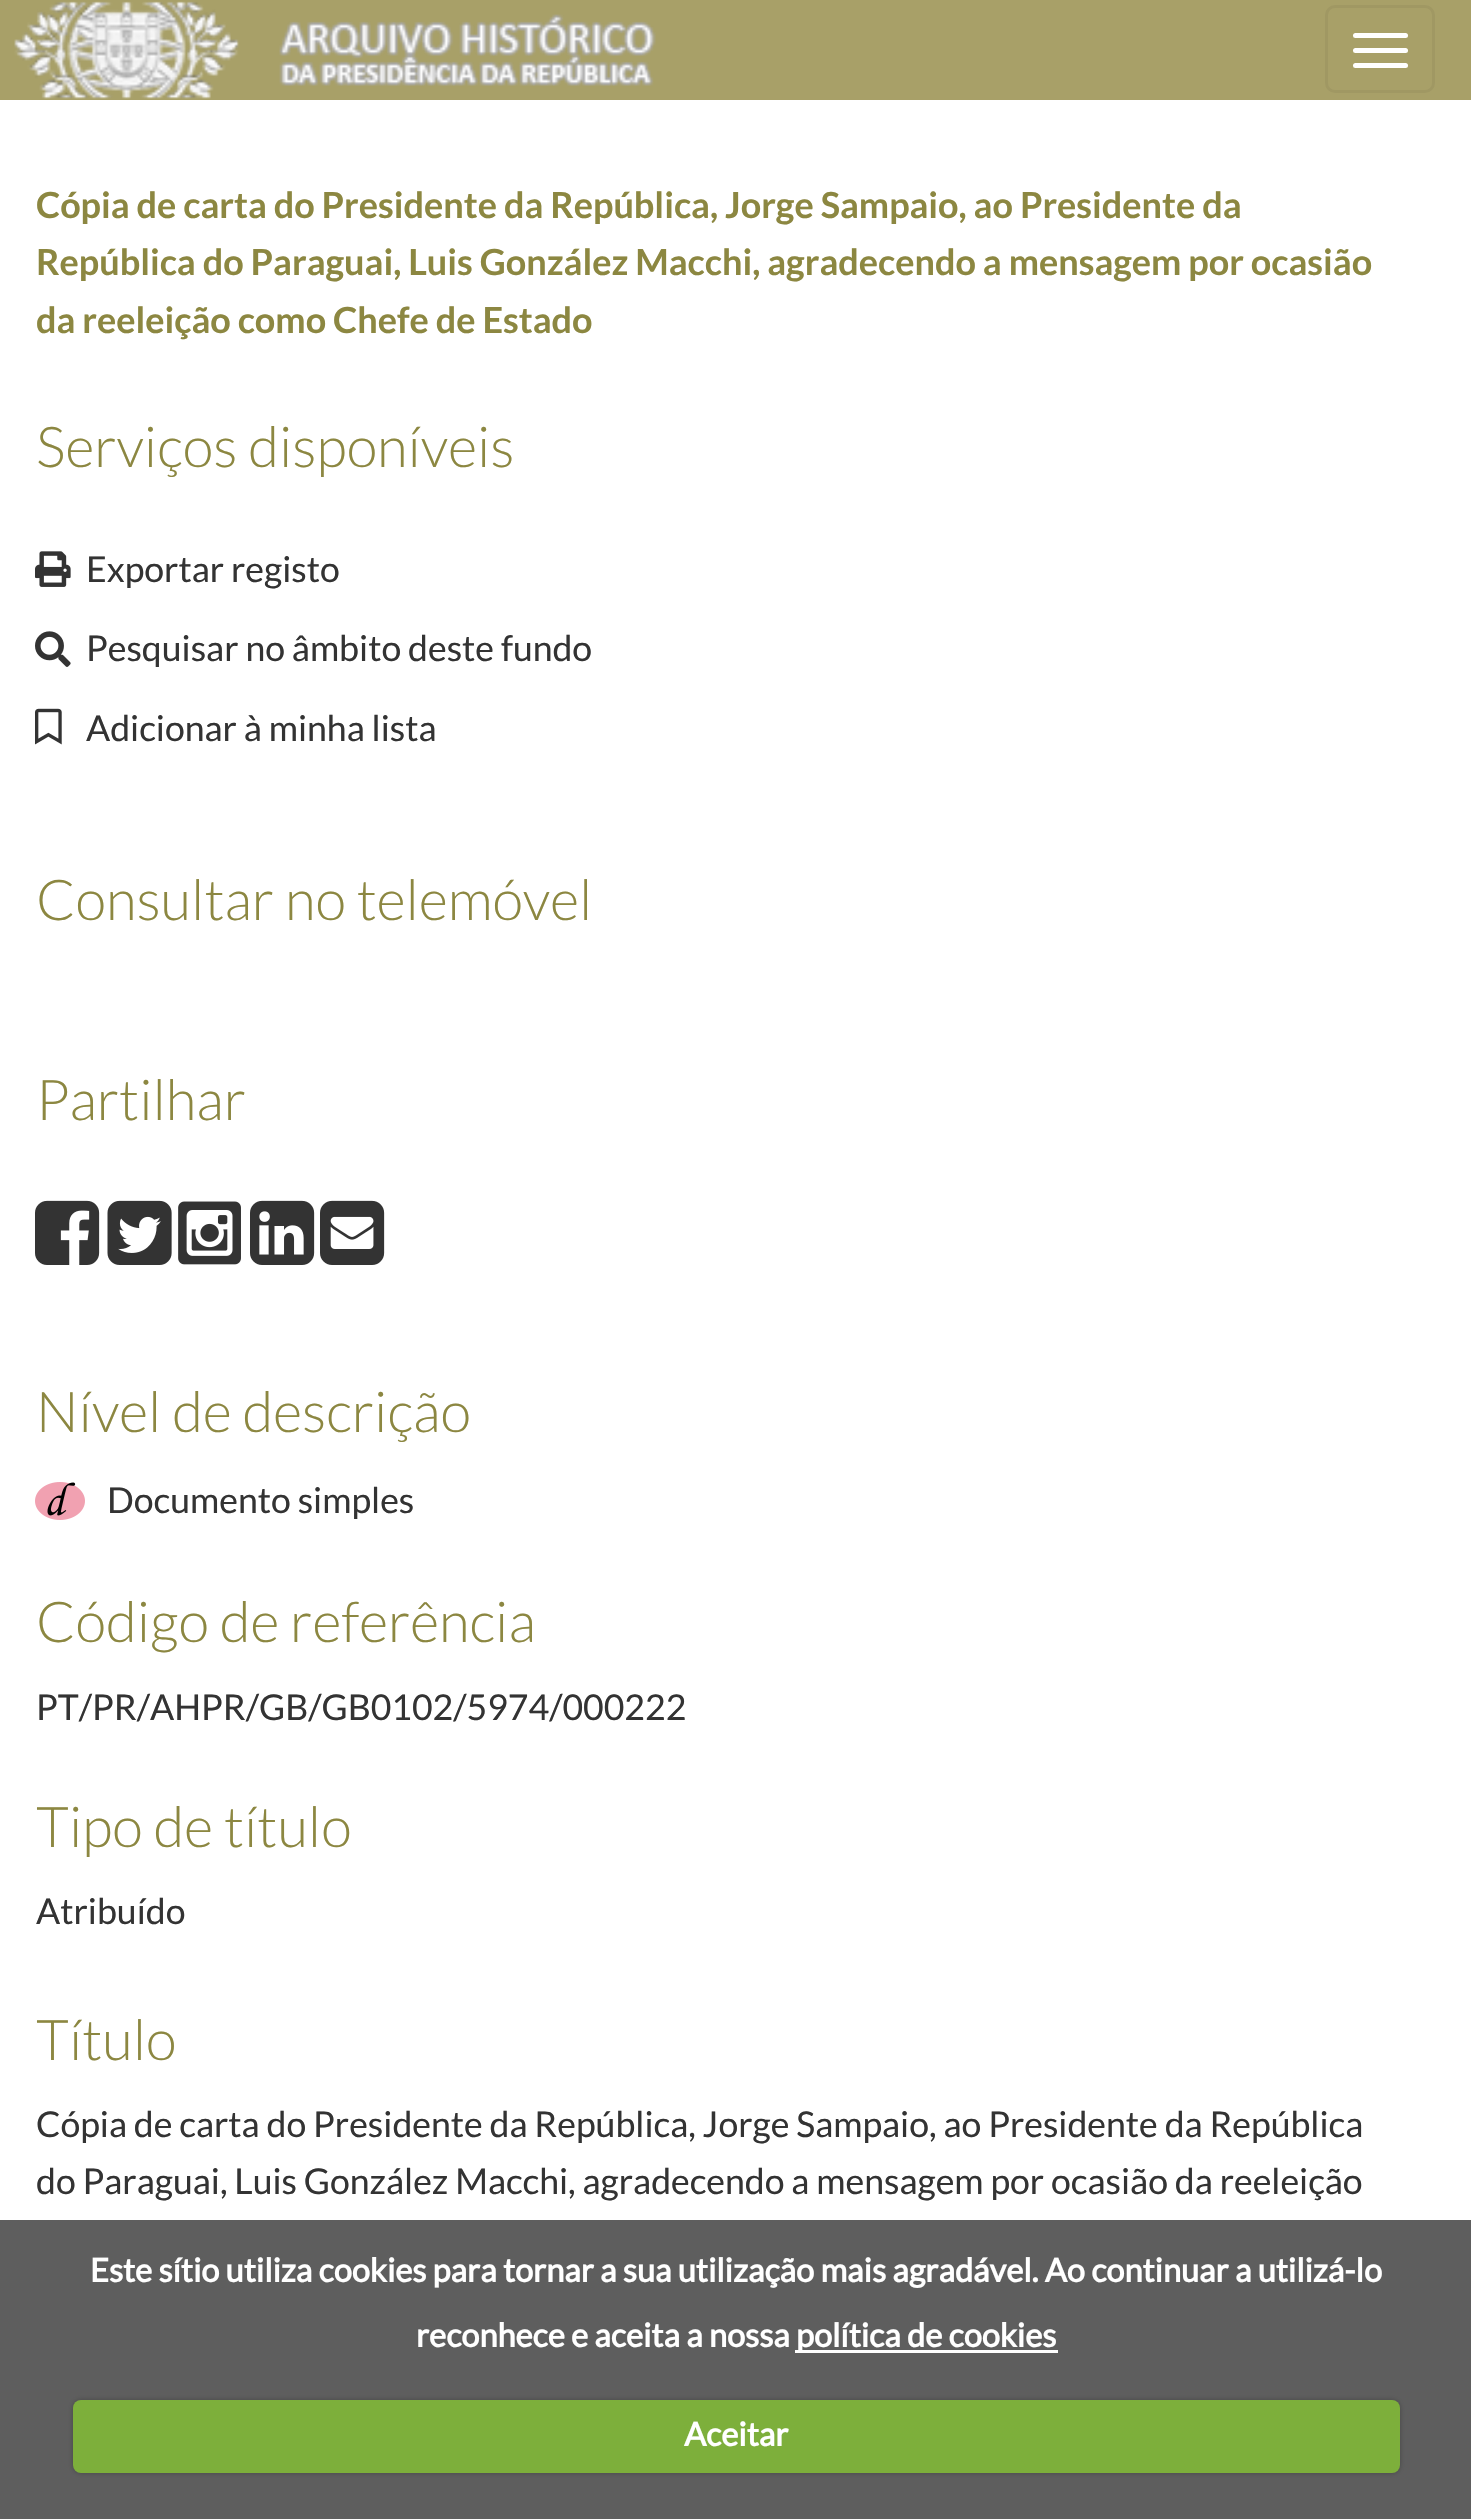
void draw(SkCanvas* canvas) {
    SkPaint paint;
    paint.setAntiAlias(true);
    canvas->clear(0xFFFFFFFF);
    paint.setColor(0xFF5E5E5E);
    canvas->drawRect(SkRect::MakeXYWH(0, 2220, 1471, 299), paint);
    paint.setColor(0xFFA8A068);
    canvas->drawRect(SkRect::MakeXYWH(0, 0, 1471, 100), paint);
    canvas->drawImageRect(SkImages::DeferredFromEncodedData(SkData::MakeFromFileName("img1.png")), SkRect::MakeXYWH(14, 1, 642, 98), SkSamplingOptions());
    paint.setStyle(SkPaint::kStroke_Style);
    paint.setStrokeWidth(3);
    paint.setColor(0xFFA09863);
    canvas->drawRoundRect(SkRect::MakeXYWH(1326.5f, 6.5f, 107, 85), 8.5f, 8.5f, paint);
    paint.setStyle(SkPaint::kFill_Style);
    paint.setColor(0xFFFFFFFF);
    canvas->drawRoundRect(SkRect::MakeXYWH(1353, 33, 55, 5), 2.5f, 2.5f, paint);
    canvas->drawRoundRect(SkRect::MakeXYWH(1353, 48, 55, 5), 2.5f, 2.5f, paint);
    canvas->drawRoundRect(SkRect::MakeXYWH(1353, 63, 55, 5), 2.5f, 2.5f, paint);
    SkFont font1(fontMgr->matchFamilyStyle("Lato", SkFontStyle::Bold()), 36);
    font1.setSubpixel(true);
    paint.setColor(0xFF8C8741);
    canvas->drawString("Cópia de carta do Presidente da República, Jorge Sampaio, ao Presidente da", 36, 218, font1, paint);
    canvas->drawString("República do Paraguai, Luis González Macchi, agradecendo a mensagem por ocasião", 36, 275, font1, paint);
    canvas->drawString("da reeleição como Chefe de Estado", 36, 333, font1, paint);
    SkFont font2(fontMgr->matchFamilyStyle("Lato", SkFontStyle(300, SkFontStyle::kNormal_Width, SkFontStyle::kUpright_Slant)), 56.25f);
    font2.setSubpixel(true);
    canvas->drawString("Serviços disponíveis", 36, 467, font2, paint);
    canvas->drawImageRect(SkImages::DeferredFromEncodedData(SkData::MakeFromFileName("img2.png")), SkRect::MakeXYWH(35, 551, 36, 36), SkSamplingOptions());
    SkFont font3(fontMgr->matchFamilyStyle("Lato", SkFontStyle::Normal()), 35.6f);
    font3.setSubpixel(true);
    paint.setColor(0xFF333333);
    canvas->drawString("Exportar registo", 86, 582, font3, paint);
    canvas->drawImageRect(SkImages::DeferredFromEncodedData(SkData::MakeFromFileName("img3.png")), SkRect::MakeXYWH(35, 631, 36, 36), SkSamplingOptions());
    canvas->drawString("Pesquisar no âmbito deste fundo", 86, 661, font3, paint);
    canvas->drawImageRect(SkImages::DeferredFromEncodedData(SkData::MakeFromFileName("img4.png")), SkRect::MakeXYWH(35, 708, 27, 37), SkSamplingOptions());
    canvas->drawString("Adicionar à minha lista", 86, 741, font3, paint);
    paint.setColor(0xFF8C8741);
    canvas->drawString("Consultar no telemóvel", 36, 920, font2, paint);
    canvas->drawString("Partilhar", 36, 1120, font2, paint);
    canvas->drawImageRect(SkImages::DeferredFromEncodedData(SkData::MakeFromFileName("img5.png")), SkRect::MakeXYWH(35, 1200, 65, 65), SkSamplingOptions());
    canvas->drawImageRect(SkImages::DeferredFromEncodedData(SkData::MakeFromFileName("img6.png")), SkRect::MakeXYWH(107, 1200, 65, 65), SkSamplingOptions());
    canvas->drawImageRect(SkImages::DeferredFromEncodedData(SkData::MakeFromFileName("img7.png")), SkRect::MakeXYWH(178, 1201, 63, 64), SkSamplingOptions());
    canvas->drawImageRect(SkImages::DeferredFromEncodedData(SkData::MakeFromFileName("img8.png")), SkRect::MakeXYWH(250, 1200, 65, 65), SkSamplingOptions());
    canvas->drawImageRect(SkImages::DeferredFromEncodedData(SkData::MakeFromFileName("img9.png")), SkRect::MakeXYWH(320, 1200, 65, 65), SkSamplingOptions());
    canvas->drawString("Nível de descrição", 36, 1432, font2, paint);
    canvas->drawImageRect(SkImages::DeferredFromEncodedData(SkData::MakeFromFileName("img10.png")), SkRect::MakeXYWH(35, 1482, 50, 38), SkSamplingOptions());
    paint.setColor(0xFF333333);
    canvas->drawString("Documento simples", 107, 1513, font3, paint);
    paint.setColor(0xFF8C8741);
    canvas->drawString("Código de referência", 36, 1642, font2, paint);
    paint.setColor(0xFF333333);
    canvas->drawString("PT/PR/AHPR/GB/GB0102/5974/000222", 36, 1720, font3, paint);
    paint.setColor(0xFF8C8741);
    canvas->drawString("Tipo de título", 36, 1847, font2, paint);
    paint.setColor(0xFF333333);
    canvas->drawString("Atribuído", 36, 1924, font3, paint);
    paint.setColor(0xFF8C8741);
    canvas->drawString("Título", 36, 2060, font2, paint);
    paint.setColor(0xFF333333);
    canvas->drawString("Cópia de carta do Presidente da República, Jorge Sampaio, ao Presidente da República", 36, 2137, font3, paint);
    canvas->drawString("do Paraguai, Luis González Macchi, agradecendo a mensagem por ocasião da reeleição", 36, 2194, font3, paint);
    SkFont font4(fontMgr->matchFamilyStyle("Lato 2", SkFontStyle::Bold()), 32.5f);
    font4.setSubpixel(true);
    paint.setColor(0xFFFFFFFF);
    canvas->drawString("Este sítio utiliza cookies para tornar a sua utilização mais agradável. Ao continuar a utilizá-lo", 90, 2282, font4, paint);
    canvas->drawString("reconhece e aceita a nossa", 416, 2347, font4, paint);
    canvas->drawRect(SkRect::MakeXYWH(795, 2350, 263, 3), paint);
    canvas->drawString("política de cookies", 796, 2347, font4, paint);
    paint.setColor(0x40000000);
    paint.setMaskFilter(SkMaskFilter::MakeBlur(kNormal_SkBlurStyle, 2.5f));
    canvas->drawRoundRect(SkRect::MakeXYWH(73, 2400, 1327, 73), 8, 8, paint);
    paint.setMaskFilter(nullptr);
    paint.setColor(0xFF7DAF3B);
    canvas->drawRoundRect(SkRect::MakeXYWH(73, 2400, 1327, 73), 8, 8, paint);
    paint.setColor(0xFFFFFFFF);
    canvas->drawString("Aceitar", 684, 2446, font4, paint);
}
